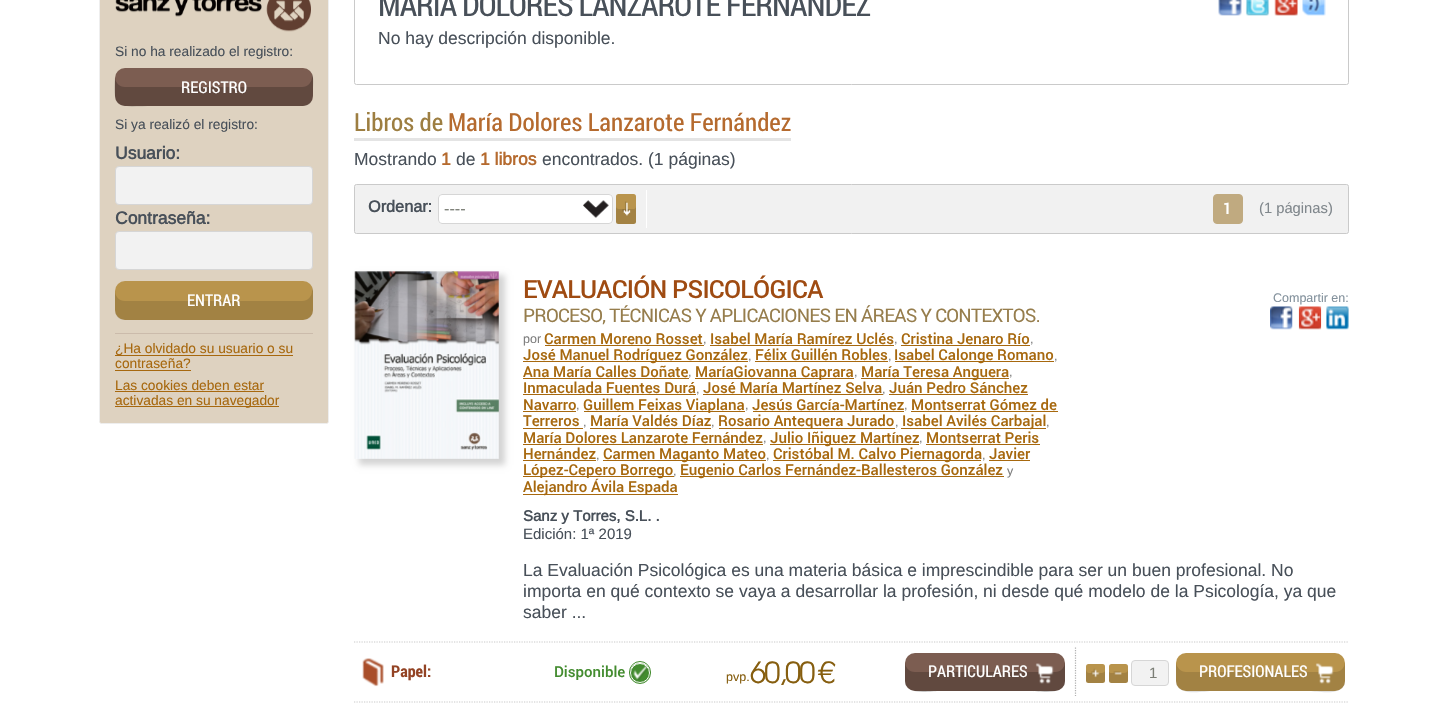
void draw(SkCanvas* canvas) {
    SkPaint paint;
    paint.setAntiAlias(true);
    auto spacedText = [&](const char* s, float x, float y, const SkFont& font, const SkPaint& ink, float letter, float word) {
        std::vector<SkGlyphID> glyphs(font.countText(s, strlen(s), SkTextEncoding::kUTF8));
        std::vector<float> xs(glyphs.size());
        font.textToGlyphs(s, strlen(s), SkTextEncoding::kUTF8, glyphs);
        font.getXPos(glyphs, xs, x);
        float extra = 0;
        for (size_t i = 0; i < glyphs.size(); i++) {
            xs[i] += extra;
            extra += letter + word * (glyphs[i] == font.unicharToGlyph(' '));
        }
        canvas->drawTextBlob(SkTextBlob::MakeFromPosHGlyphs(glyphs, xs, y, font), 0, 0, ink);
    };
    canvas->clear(0xFFFFFFFF);
    paint.setColor(0xFFDED2C0);
    canvas->drawPath(SkPathBuilder().moveTo(99.5f, -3.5f).lineTo(328.5f, -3.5f).lineTo(328.5f, 421.5f).cubicTo(328.5f, 422.5f, 327.5f, 423.5f, 326.5f, 423.5f).lineTo(101.5f, 423.5f).cubicTo(100.5f, 423.5f, 99.5f, 422.5f, 99.5f, 421.5f).close().detach(), paint);
    paint.setStyle(SkPaint::kStroke_Style);
    paint.setStrokeWidth(1);
    paint.setColor(0xFFEEEEEE);
    canvas->drawPath(SkPathBuilder().moveTo(99.5f, -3.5f).lineTo(328.5f, -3.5f).lineTo(328.5f, 421.5f).cubicTo(328.5f, 422.5f, 327.5f, 423.5f, 326.5f, 423.5f).lineTo(101.5f, 423.5f).cubicTo(100.5f, 423.5f, 99.5f, 422.5f, 99.5f, 421.5f).close().detach(), paint);
    canvas->drawImageRect(SkImages::DeferredFromEncodedData(SkData::MakeFromFileName("img1.png")), SkRect::MakeXYWH(115, 0, 196, 32), SkSamplingOptions());
    SkFont font1(fontMgr->matchFamilyStyle("Arimo", SkFontStyle::Normal()), 13.75f);
    font1.setSubpixel(true);
    paint.setStyle(SkPaint::kFill_Style);
    paint.setColor(0xFF485059);
    canvas->drawString("Si no ha realizado el registro:", 115, 56, font1, paint);
    paint.setColor(0xFF7C5D51);
    canvas->drawRoundRect(SkRect::MakeXYWH(115, 68, 198, 38), 10, 10, paint);
    paint.setColor(0x38000000);
    canvas->drawPath(SkPathBuilder().moveTo(115, 77).cubicTo(113, 112, 117, 106, 155, 106).lineTo(303, 106).cubicTo(313, 106, 313, 97, 313, 90).cubicTo(313, 85, 314, 78, 312, 74).lineTo(312, 77).cubicTo(312, 82, 308, 87, 302, 87).lineTo(125, 87).cubicTo(119, 87, 115, 82, 115, 77).close().detach(), paint);
    SkFont font2(fontMgr->matchFamilyStyle("Roboto Condensed", SkFontStyle::Normal()), 16.25f);
    font2.setSubpixel(true);
    paint.setColor(0xFFFFFFFF);
    canvas->drawString("REGISTRO", 181, 93, font2, paint);
    paint.setColor(0xFF485059);
    canvas->drawString("Si ya realizó el registro:", 115, 129, font1, paint);
    SkFont font3(fontMgr->matchFamilyStyle("Arimo", SkFontStyle::Bold()), 17.5f);
    font3.setSubpixel(true);
    canvas->drawString("Usuario:", 115, 159, font3, paint);
    paint.setColor(0xFFF2F2F2);
    canvas->drawRoundRect(SkRect::MakeXYWH(115.5f, 166.5f, 197, 38), 3.5f, 3.5f, paint);
    paint.setStyle(SkPaint::kStroke_Style);
    paint.setColor(0xFFD6D6D6);
    canvas->drawRoundRect(SkRect::MakeXYWH(115.5f, 166.5f, 197, 38), 3.5f, 3.5f, paint);
    paint.setStyle(SkPaint::kFill_Style);
    paint.setColor(0xFF485059);
    canvas->drawString("Contraseña:", 115, 224, font3, paint);
    paint.setColor(0xFFF2F2F2);
    canvas->drawRoundRect(SkRect::MakeXYWH(115.5f, 231.5f, 197, 38), 3.5f, 3.5f, paint);
    paint.setStyle(SkPaint::kStroke_Style);
    paint.setColor(0xFFD6D6D6);
    canvas->drawRoundRect(SkRect::MakeXYWH(115.5f, 231.5f, 197, 38), 3.5f, 3.5f, paint);
    paint.setStyle(SkPaint::kFill_Style);
    paint.setColor(0xFFB9944C);
    canvas->drawRoundRect(SkRect::MakeXYWH(115, 281, 198, 39), 10, 10, paint);
    paint.setColor(0x1F000000);
    canvas->drawPath(SkPathBuilder().moveTo(115, 291).lineTo(115, 310).cubicTo(115, 316, 119, 320, 125, 320).lineTo(303, 320).cubicTo(309, 320, 313, 316, 313, 310).lineTo(313, 291).lineTo(312, 287).lineTo(312, 291).cubicTo(312, 296, 308, 301, 302, 301).lineTo(125, 301).cubicTo(119, 301, 115, 296, 115, 291).close().detach(), paint);
    paint.setColor(0xFFFFFFFF);
    canvas->drawString("ENTRAR", 187, 306, font2, paint);
    paint.setColor(0xFFCBBBAB);
    canvas->drawRect(SkRect::MakeXYWH(115, 333, 198, 1), paint);
    paint.setColor(0xFFA7680E);
    canvas->drawRect(SkRect::MakeXYWH(115, 355, 178, 1), paint);
    canvas->drawString("¿Ha olvidado su usuario o su", 115, 353, font1, paint);
    canvas->drawString("contraseña?", 115, 368, font1, paint);
    canvas->drawRect(SkRect::MakeXYWH(115, 370, 76, 1), paint);
    canvas->drawString("Las cookies deben estar", 115, 390, font1, paint);
    canvas->drawRect(SkRect::MakeXYWH(115, 391, 149, 1), paint);
    canvas->drawRect(SkRect::MakeXYWH(115, 406, 164, 1), paint);
    canvas->drawString("activadas en su navegador", 115, 405, font1, paint);
    paint.setStyle(SkPaint::kStroke_Style);
    paint.setColor(0xFFCACACA);
    canvas->drawRoundRect(SkRect::MakeXYWH(354.5f, -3.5f, 994, 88), 2, 2, paint);
    SkFont font4(fontMgr->matchFamilyStyle("Roboto Condensed", SkFontStyle::Normal()), 31.25f);
    font4.setSubpixel(true);
    paint.setStyle(SkPaint::kFill_Style);
    paint.setColor(0xFF485059);
    spacedText("MARÍA DOLORES LANZAROTE FERNÁNDEZ", 378, 16, font4, paint, -0.95f, 0);
    canvas->drawImageRect(SkImages::DeferredFromEncodedData(SkData::MakeFromFileName("img2.png")), SkRect::MakeXYWH(1218, 0, 24, 16), SkSamplingOptions());
    canvas->drawImageRect(SkImages::DeferredFromEncodedData(SkData::MakeFromFileName("img3.png")), SkRect::MakeXYWH(1245, 0, 25, 16), SkSamplingOptions());
    canvas->drawImageRect(SkImages::DeferredFromEncodedData(SkData::MakeFromFileName("img4.png")), SkRect::MakeXYWH(1274, 0, 24, 16), SkSamplingOptions());
    canvas->drawImageRect(SkImages::DeferredFromEncodedData(SkData::MakeFromFileName("img5.png")), SkRect::MakeXYWH(1302, 0, 24, 16), SkSamplingOptions());
    SkFont font5(fontMgr->matchFamilyStyle("Arimo", SkFontStyle::Normal()), 17.5f);
    font5.setSubpixel(true);
    canvas->drawString("No hay descripción disponible.", 378, 44, font5, paint);
    paint.setColor(0xFFE4E4E4);
    canvas->drawRect(SkRect::MakeXYWH(354, 138, 437, 3), paint);
    SkFont font6(fontMgr->matchFamilyStyle("Roboto Condensed", SkFontStyle::Normal()), 25);
    font6.setSubpixel(true);
    paint.setColor(0xFF9D7E41);
    canvas->drawString("Libros de", 354, 131, font6, paint);
    paint.setColor(0xFFB56A2E);
    canvas->drawString("María Dolores Lanzarote Fernández", 448, 131, font6, paint);
    paint.setColor(0xFF485059);
    canvas->drawString("Mostrando", 354, 165, font5, paint);
    paint.setColor(0xFFB56A2E);
    canvas->drawString("1", 441, 165, font3, paint);
    paint.setColor(0xFF485059);
    canvas->drawString("de", 456, 165, font5, paint);
    paint.setColor(0xFFB56A2E);
    canvas->drawString("1 libros", 480, 165, font3, paint);
    paint.setColor(0xFF485059);
    canvas->drawString("encontrados. (1 páginas)", 542, 165, font5, paint);
    paint.setColor(0xFFF1F1F1);
    canvas->drawRoundRect(SkRect::MakeXYWH(354.5f, 184.5f, 994, 49), 2, 2, paint);
    paint.setStyle(SkPaint::kStroke_Style);
    paint.setColor(0xFFCACACA);
    canvas->drawRoundRect(SkRect::MakeXYWH(354.5f, 184.5f, 994, 49), 2, 2, paint);
    paint.setStyle(SkPaint::kFill_Style);
    paint.setColor(0xFFFFFFFF);
    canvas->drawRect(SkRect::MakeXYWH(646, 190, 1, 38), paint);
    SkFont font7(fontMgr->matchFamilyStyle("Arimo", SkFontStyle::Bold()), 16.25f);
    font7.setSubpixel(true);
    paint.setColor(0xFF485059);
    canvas->drawString("Ordenar:", 368, 212, font7, paint);
    paint.setColor(0xFFFFFFFF);
    canvas->drawRoundRect(SkRect::MakeXYWH(438, 194, 175, 30), 4, 4, paint);
    canvas->drawImageRect(SkImages::DeferredFromEncodedData(SkData::MakeFromFileName("img6.png")), SkRect::MakeXYWH(583, 200, 26, 18), SkSamplingOptions());
    paint.setStyle(SkPaint::kStroke_Style);
    paint.setColor(0xFFD6D6D6);
    canvas->drawRoundRect(SkRect::MakeXYWH(438.5f, 194.5f, 174, 29), 3.5f, 3.5f, paint);
    SkFont font8(fontMgr->matchFamilyStyle("Arimo", SkFontStyle::Normal()), 16.25f);
    font8.setSubpixel(true);
    paint.setStyle(SkPaint::kFill_Style);
    paint.setColor(0xFF7B7E76);
    canvas->drawString("----", 444, 214, font8, paint);
    paint.setColor(0xFFB9944C);
    canvas->drawRoundRect(SkRect::MakeXYWH(616, 194, 20, 30), 2.5f, 2.5f, paint);
    paint.setColor(0x1F000000);
    canvas->drawPath(SkPathBuilder().moveTo(616, 206).lineTo(616, 221.5f).cubicTo(616, 223, 617, 224, 618.5f, 224).lineTo(633.5f, 224).cubicTo(635, 224, 636, 223, 636, 221.5f).lineTo(636, 206).cubicTo(636, 208, 635, 209, 634, 209).lineTo(619, 209).cubicTo(617, 209, 616, 208, 616, 206).close().detach(), paint);
    canvas->drawImageRect(SkImages::DeferredFromEncodedData(SkData::MakeFromFileName("img7.png")), SkRect::MakeXYWH(622, 201, 9, 15), SkSamplingOptions());
    paint.setColor(0xFFC0AA80);
    canvas->drawRoundRect(SkRect::MakeXYWH(1213.5f, 194.5f, 29, 29), 3.5f, 3.5f, paint);
    paint.setStyle(SkPaint::kStroke_Style);
    canvas->drawRoundRect(SkRect::MakeXYWH(1213.5f, 194.5f, 29, 29), 3.5f, 3.5f, paint);
    SkFont font9(fontMgr->matchFamilyStyle("Roboto", SkFontStyle::Bold()), 15);
    font9.setSubpixel(true);
    paint.setStyle(SkPaint::kFill_Style);
    paint.setColor(0xFFFFFFFF);
    canvas->drawString("1", 1223, 214, font9, paint);
    SkFont font10(fontMgr->matchFamilyStyle("Arimo", SkFontStyle::Normal()), 14.75f);
    font10.setSubpixel(true);
    paint.setColor(0xFF80878C);
    canvas->drawString("(1 páginas)", 1259, 213, font10, paint);
    paint.setColor(0x2B000000);
    paint.setMaskFilter(SkMaskFilter::MakeBlur(kNormal_SkBlurStyle, 3));
    canvas->drawRect(SkRect::MakeXYWH(359, 275, 146, 190), paint);
    paint.setMaskFilter(nullptr);
    canvas->drawImageRect(SkImages::DeferredFromEncodedData(SkData::MakeFromFileName("img8.png")), SkRect::MakeXYWH(354, 271, 145, 188), SkSamplingOptions());
    SkFont font11(fontMgr->matchFamilyStyle("Roboto", SkFontStyle(500, SkFontStyle::kNormal_Width, SkFontStyle::kUpright_Slant)), 25);
    font11.setSubpixel(true);
    paint.setColor(0xFF9F4B12);
    spacedText("EVALUACIÓN PSICOLÓGICA", 523, 298, font11, paint, -0.75f, 0);
    SkFont font12(fontMgr->matchFamilyStyle("Roboto", SkFontStyle::Normal()), 18.75f);
    font12.setSubpixel(true);
    paint.setColor(0xFF967D4C);
    spacedText("PROCESO, TÉCNICAS Y APLICACIONES EN ÁREAS Y CONTEXTOS.", 523, 322, font12, paint, -0.75f, 0);
    SkFont font13(fontMgr->matchFamilyStyle("Arimo", SkFontStyle::Normal()), 12.5f);
    font13.setSubpixel(true);
    paint.setColor(0xFF7E7E7E);
    canvas->drawString("por", 523, 343, font13, paint);
    SkFont font14(fontMgr->matchFamilyStyle("Roboto", SkFontStyle(500, SkFontStyle::kNormal_Width, SkFontStyle::kUpright_Slant)), 15);
    font14.setSubpixel(true);
    paint.setColor(0xFFA7680E);
    canvas->drawString("Carmen Moreno Rosset", 544, 344, font14, paint);
    canvas->drawRect(SkRect::MakeXYWH(545, 345, 159, 1), paint);
    paint.setColor(0xFF7E7E7E);
    canvas->drawString(",", 703, 343, font13, paint);
    paint.setColor(0xFFA7680E);
    canvas->drawString("Isabel María Ramírez Uclés", 710, 344, font14, paint);
    canvas->drawRect(SkRect::MakeXYWH(710, 345, 184, 1), paint);
    paint.setColor(0xFF7E7E7E);
    canvas->drawString(",", 894, 343, font13, paint);
    paint.setColor(0xFFA7680E);
    canvas->drawString("Cristina Jenaro Río", 901, 344, font14, paint);
    canvas->drawRect(SkRect::MakeXYWH(901, 345, 129, 1), paint);
    paint.setColor(0xFF7E7E7E);
    canvas->drawString(",", 1030, 343, font13, paint);
    paint.setColor(0xFFA7680E);
    canvas->drawRect(SkRect::MakeXYWH(523, 361, 225, 1), paint);
    canvas->drawString("José Manuel Rodríguez González", 523, 360, font14, paint);
    paint.setColor(0xFF7E7E7E);
    canvas->drawString(",", 748, 360, font13, paint);
    paint.setColor(0xFFA7680E);
    canvas->drawString("Félix Guillén Robles", 755, 360, font14, paint);
    canvas->drawRect(SkRect::MakeXYWH(755, 361, 133, 1), paint);
    paint.setColor(0xFF7E7E7E);
    canvas->drawString(",", 888, 360, font13, paint);
    paint.setColor(0xFFA7680E);
    canvas->drawRect(SkRect::MakeXYWH(895, 361, 159, 1), paint);
    canvas->drawString("Isabel Calonge Romano", 894, 360, font14, paint);
    paint.setColor(0xFF7E7E7E);
    canvas->drawString(",", 1054, 360, font13, paint);
    paint.setColor(0xFFA7680E);
    canvas->drawString("Ana María Calles Doñate", 523, 377, font14, paint);
    canvas->drawRect(SkRect::MakeXYWH(523, 378, 166, 1), paint);
    paint.setColor(0xFF7E7E7E);
    canvas->drawString(",", 688, 376, font13, paint);
    paint.setColor(0xFFA7680E);
    canvas->drawRect(SkRect::MakeXYWH(695, 378, 159, 1), paint);
    canvas->drawString("MaríaGiovanna Caprara", 695, 377, font14, paint);
    paint.setColor(0xFF7E7E7E);
    canvas->drawString(",", 854, 376, font13, paint);
    paint.setColor(0xFFA7680E);
    canvas->drawRect(SkRect::MakeXYWH(861, 378, 148, 1), paint);
    canvas->drawString("María Teresa Anguera", 861, 377, font14, paint);
    paint.setColor(0xFF7E7E7E);
    canvas->drawString(",", 1009, 376, font13, paint);
    paint.setColor(0xFFA7680E);
    canvas->drawString("Inmaculada Fuentes Durá", 523, 393, font14, paint);
    canvas->drawRect(SkRect::MakeXYWH(523, 394, 173, 1), paint);
    paint.setColor(0xFF7E7E7E);
    canvas->drawString(",", 696, 393, font13, paint);
    paint.setColor(0xFFA7680E);
    canvas->drawString("José María Martínez Selva", 703, 393, font14, paint);
    canvas->drawRect(SkRect::MakeXYWH(703, 394, 180, 1), paint);
    paint.setColor(0xFF7E7E7E);
    canvas->drawString(",", 882, 393, font13, paint);
    paint.setColor(0xFFA7680E);
    canvas->drawString("Juán Pedro Sánchez", 889, 393, font14, paint);
    canvas->drawRect(SkRect::MakeXYWH(889, 394, 139, 1), paint);
    canvas->drawString("Navarro", 523, 410, font14, paint);
    canvas->drawRect(SkRect::MakeXYWH(523, 411, 53, 1), paint);
    paint.setColor(0xFF7E7E7E);
    canvas->drawString(",", 576, 409, font13, paint);
    paint.setColor(0xFFA7680E);
    canvas->drawRect(SkRect::MakeXYWH(584, 411, 161, 1), paint);
    canvas->drawString("Guillem Feixas Viaplana", 583, 410, font14, paint);
    paint.setColor(0xFF7E7E7E);
    canvas->drawString(",", 745, 409, font13, paint);
    paint.setColor(0xFFA7680E);
    canvas->drawString("Jesús García-Martínez", 752, 410, font14, paint);
    canvas->drawRect(SkRect::MakeXYWH(753, 411, 151, 1), paint);
    paint.setColor(0xFF7E7E7E);
    canvas->drawString(",", 904, 409, font13, paint);
    paint.setColor(0xFFA7680E);
    canvas->drawString("Montserrat Gómez de", 911, 410, font14, paint);
    canvas->drawRect(SkRect::MakeXYWH(911, 411, 147, 1), paint);
    canvas->drawString("Terreros", 523, 426, font14, paint);
    canvas->drawRect(SkRect::MakeXYWH(523, 428, 60, 1), paint);
    paint.setColor(0xFF7E7E7E);
    canvas->drawString(",", 583, 426, font13, paint);
    paint.setColor(0xFFA7680E);
    canvas->drawString("María Valdés Díaz", 590, 426, font14, paint);
    canvas->drawRect(SkRect::MakeXYWH(590, 428, 121, 1), paint);
    paint.setColor(0xFF7E7E7E);
    canvas->drawString(",", 711, 426, font13, paint);
    paint.setColor(0xFFA7680E);
    canvas->drawRect(SkRect::MakeXYWH(719, 428, 176, 1), paint);
    canvas->drawString("Rosario Antequera Jurado", 718, 426, font14, paint);
    paint.setColor(0xFF7E7E7E);
    canvas->drawString(",", 895, 426, font13, paint);
    paint.setColor(0xFFA7680E);
    canvas->drawRect(SkRect::MakeXYWH(901, 428, 145, 1), paint);
    canvas->drawString("Isabel Avilés Carbajal", 902, 426, font14, paint);
    paint.setColor(0xFF7E7E7E);
    canvas->drawString(",", 1046, 426, font13, paint);
    paint.setColor(0xFFA7680E);
    canvas->drawString("María Dolores Lanzarote Fernández", 523, 443, font14, paint);
    canvas->drawRect(SkRect::MakeXYWH(523, 444, 240, 1), paint);
    paint.setColor(0xFF7E7E7E);
    canvas->drawString(",", 763, 442, font13, paint);
    paint.setColor(0xFFA7680E);
    canvas->drawRect(SkRect::MakeXYWH(770, 444, 149, 1), paint);
    canvas->drawString("Julio Iñiguez Martínez", 770, 443, font14, paint);
    paint.setColor(0xFF7E7E7E);
    canvas->drawString(",", 919, 442, font13, paint);
    paint.setColor(0xFFA7680E);
    canvas->drawString("Montserrat Peris", 926, 443, font14, paint);
    canvas->drawRect(SkRect::MakeXYWH(926, 444, 114, 1), paint);
    canvas->drawString("Hernández", 523, 459, font14, paint);
    canvas->drawRect(SkRect::MakeXYWH(523, 460, 73, 1), paint);
    paint.setColor(0xFF7E7E7E);
    canvas->drawString(",", 596, 459, font13, paint);
    paint.setColor(0xFFA7680E);
    canvas->drawRect(SkRect::MakeXYWH(603, 460, 163, 1), paint);
    canvas->drawString("Carmen Maganto Mateo", 603, 459, font14, paint);
    paint.setColor(0xFF7E7E7E);
    canvas->drawString(",", 766, 459, font13, paint);
    paint.setColor(0xFFA7680E);
    canvas->drawRect(SkRect::MakeXYWH(773, 460, 208, 1), paint);
    canvas->drawString("Cristóbal M. Calvo Piernagorda", 773, 459, font14, paint);
    paint.setColor(0xFF7E7E7E);
    canvas->drawString(",", 982, 459, font13, paint);
    paint.setColor(0xFFA7680E);
    canvas->drawString("Javier", 989, 459, font14, paint);
    canvas->drawRect(SkRect::MakeXYWH(989, 460, 41, 1), paint);
    canvas->drawRect(SkRect::MakeXYWH(523, 476, 151, 1), paint);
    canvas->drawString("López-Cepero Borrego", 523, 475, font14, paint);
    paint.setColor(0xFF7E7E7E);
    canvas->drawString(",", 673, 475, font13, paint);
    paint.setColor(0xFFA7680E);
    canvas->drawRect(SkRect::MakeXYWH(680, 476, 324, 1), paint);
    canvas->drawString("Eugenio Carlos Fernández-Ballesteros González", 680, 475, font14, paint);
    paint.setColor(0xFF7E7E7E);
    canvas->drawString("y", 1007, 475, font13, paint);
    paint.setColor(0xFFA7680E);
    canvas->drawRect(SkRect::MakeXYWH(523, 494, 155, 1), paint);
    canvas->drawString("Alejandro Ávila Espada", 523, 492, font14, paint);
    SkFont font15(fontMgr->matchFamilyStyle("Arimo", SkFontStyle::Bold()), 15);
    font15.setSubpixel(true);
    paint.setColor(0xFF485059);
    canvas->drawString("Sanz y Torres, S.L. .", 523, 521, font15, paint);
    SkFont font16(fontMgr->matchFamilyStyle("Arimo", SkFontStyle::Normal()), 15);
    font16.setSubpixel(true);
    canvas->drawString("Edición: 1ª 2019", 523, 539, font16, paint);
    paint.setColor(0xFF83919C);
    canvas->drawString("Compartir en:", 1273, 302, font13, paint);
    canvas->drawImageRect(SkImages::DeferredFromEncodedData(SkData::MakeFromFileName("img9.png")), SkRect::MakeXYWH(1270, 306, 23, 24), SkSamplingOptions());
    canvas->drawImageRect(SkImages::DeferredFromEncodedData(SkData::MakeFromFileName("img10.png")), SkRect::MakeXYWH(1298, 306, 24, 24), SkSamplingOptions());
    canvas->drawImageRect(SkImages::DeferredFromEncodedData(SkData::MakeFromFileName("img11.png")), SkRect::MakeXYWH(1326, 306, 23, 24), SkSamplingOptions());
    paint.setColor(0xFF485059);
    canvas->drawString("La Evaluación Psicológica es una materia básica e imprescindible para ser un buen profesional. No", 523, 576, font5, paint);
    canvas->drawString("importa en qué contexto se vaya a desarrollar la profesión, ni desde qué modelo de la Psicología, ya que", 523, 597, font5, paint);
    canvas->drawString("saber ...", 523, 618, font5, paint);
    paint.setStyle(SkPaint::kStroke_Style);
    paint.setStrokeWidth(1.2f);
    paint.setColor(0xFFCACACA);
    paint.setPathEffect(SkDashPathEffect::Make({{1.25f, 1.25f}}, 0));
    canvas->drawPath(SkPathBuilder().moveTo(354, 642).lineTo(1349, 642).detach(), paint);
    paint.setPathEffect(nullptr);
    canvas->drawImageRect(SkImages::DeferredFromEncodedData(SkData::MakeFromFileName("img12.png")), SkRect::MakeXYWH(362, 658, 22, 29), SkSamplingOptions());
    SkFont font17(fontMgr->matchFamilyStyle("Roboto Condensed", SkFontStyle::Bold()), 16.25f);
    font17.setSubpixel(true);
    paint.setStyle(SkPaint::kFill_Style);
    paint.setColor(0xFF934324);
    canvas->drawString("Papel:", 391, 677, font17, paint);
    paint.setColor(0xFF438C2F);
    canvas->drawString("Disponible", 554, 677, font14, paint);
    canvas->drawCircle(640, 673, 10, paint);
    canvas->drawImageRect(SkImages::DeferredFromEncodedData(SkData::MakeFromFileName("img13.png")), SkRect::MakeXYWH(633, 665, 15, 16), SkSamplingOptions());
    paint.setStyle(SkPaint::kStroke_Style);
    paint.setStrokeWidth(1);
    paint.setColor(0xFFFFFFFF);
    canvas->drawCircle(640, 673, 9.5f, paint);
    paint.setColor(0xFF438C2F);
    canvas->drawRoundRect(SkRect::MakeXYWH(629.5f, 661.5f, 21, 22), 10.5f, 10.5f, paint);
    paint.setStyle(SkPaint::kFill_Style);
    paint.setColor(0xFF865E0F);
    canvas->drawString("pvp.", 726, 681, font13, paint);
    SkFont font18(fontMgr->matchFamilyStyle("TeX Gyre Adventor", SkFontStyle::Normal()), 29);
    font18.setSubpixel(true);
    spacedText("60,00 €", 750, 683, font18, paint, -1.75f, -1);
    paint.setColor(0xFF7C5D51);
    canvas->drawRoundRect(SkRect::MakeXYWH(905, 653, 160, 38), 10, 10, paint);
    paint.setColor(0x38000000);
    canvas->drawPath(SkPathBuilder().moveTo(905, 662).lineTo(905, 683).cubicTo(908, 696, 932, 691, 938, 691).lineTo(1032, 691).cubicTo(1038, 691, 1062, 696, 1065, 683).lineTo(1065, 662).cubicTo(1065, 667, 1061, 672, 1055, 672).lineTo(915, 672).cubicTo(909, 672, 905, 667, 905, 662).close().detach(), paint);
    paint.setColor(0xFFFFFFFF);
    canvas->drawString("PARTICULARES", 928, 677, font2, paint);
    canvas->drawImageRect(SkImages::DeferredFromEncodedData(SkData::MakeFromFileName("img14.png")), SkRect::MakeXYWH(1035, 663, 19, 21), SkSamplingOptions());
    paint.setStyle(SkPaint::kStroke_Style);
    paint.setStrokeWidth(1.2f);
    paint.setColor(0xFFB0B0B0);
    paint.setPathEffect(SkDashPathEffect::Make({{1.25f, 1.25f}}, 0));
    canvas->drawPath(SkPathBuilder().moveTo(1075.5f, 647.5f).lineTo(1075.5f, 696).detach(), paint);
    paint.setPathEffect(nullptr);
    paint.setStyle(SkPaint::kFill_Style);
    paint.setColor(0xFFB9944C);
    canvas->drawRoundRect(SkRect::MakeXYWH(1086, 664, 19, 19), 2.5f, 2.5f, paint);
    paint.setColor(0x1F000000);
    canvas->drawPath(SkPathBuilder().moveTo(1086, 669).lineTo(1086, 680.5f).cubicTo(1086, 682, 1087, 683, 1088.5f, 683).lineTo(1102.5f, 683).cubicTo(1104, 683, 1105, 682, 1105, 680.5f).lineTo(1105, 671).cubicTo(1104.5f, 672.5f, 1103, 673, 1100, 673).lineTo(1089, 673).cubicTo(1087, 673, 1086, 671, 1086, 669).close().detach(), paint);
    canvas->drawImageRect(SkImages::DeferredFromEncodedData(SkData::MakeFromFileName("img15.png")), SkRect::MakeXYWH(1091, 668, 9, 10), SkSamplingOptions());
    paint.setColor(0xFFB9944C);
    canvas->drawRoundRect(SkRect::MakeXYWH(1109, 664, 19, 19), 2.5f, 2.5f, paint);
    paint.setColor(0x1F000000);
    canvas->drawPath(SkPathBuilder().moveTo(1109, 672).lineTo(1109, 680.5f).cubicTo(1109, 682, 1110, 683, 1111.5f, 683).lineTo(1125.5f, 683).cubicTo(1127, 683, 1128, 682, 1128, 680.5f).lineTo(1128, 669.5f).cubicTo(1128, 672, 1126.5f, 673, 1123, 673).lineTo(1111, 673).cubicTo(1110, 673, 1109.5f, 672.5f, 1109, 672).close().detach(), paint);
    canvas->drawImageRect(SkImages::DeferredFromEncodedData(SkData::MakeFromFileName("img16.png")), SkRect::MakeXYWH(1113, 671, 9, 4), SkSamplingOptions());
    paint.setColor(0xFFF2F2F2);
    canvas->drawRoundRect(SkRect::MakeXYWH(1131.5f, 660.5f, 37, 25), 3.5f, 3.5f, paint);
    paint.setStyle(SkPaint::kStroke_Style);
    paint.setStrokeWidth(1);
    paint.setColor(0xFFD6D6D6);
    canvas->drawRoundRect(SkRect::MakeXYWH(1131.5f, 660.5f, 37, 25), 3.5f, 3.5f, paint);
    paint.setStyle(SkPaint::kFill_Style);
    paint.setColor(0xFF7B7E76);
    canvas->drawString("1", 1149, 678, font16, paint);
    paint.setColor(0xFFB9944C);
    canvas->drawRoundRect(SkRect::MakeXYWH(1176, 653, 169, 38), 10, 10, paint);
    paint.setColor(0x1F000000);
    canvas->drawPath(SkPathBuilder().moveTo(1176, 662).lineTo(1176, 683).cubicTo(1179, 697, 1205, 691, 1211, 691).lineTo(1310, 691).cubicTo(1316, 691, 1342, 697, 1345, 683).lineTo(1345, 662).cubicTo(1345, 667, 1341, 672, 1335, 672).lineTo(1186, 672).cubicTo(1181, 672, 1176, 667, 1176, 662).close().detach(), paint);
    paint.setColor(0xFFFFFFFF);
    canvas->drawString("PROFESIONALES", 1199, 677, font2, paint);
    canvas->drawImageRect(SkImages::DeferredFromEncodedData(SkData::MakeFromFileName("img17.png")), SkRect::MakeXYWH(1315, 663, 19, 21), SkSamplingOptions());
    paint.setStyle(SkPaint::kStroke_Style);
    paint.setStrokeWidth(1.2f);
    paint.setColor(0xFFCACACA);
    paint.setPathEffect(SkDashPathEffect::Make({{1.25f, 1.25f}}, 0));
    canvas->drawPath(SkPathBuilder().moveTo(354, 702).lineTo(1349, 702).detach(), paint);
    paint.setPathEffect(nullptr);
}
